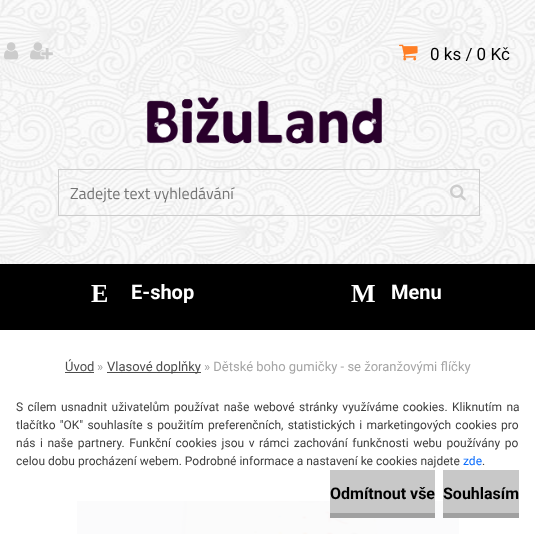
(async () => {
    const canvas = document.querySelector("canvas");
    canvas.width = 535;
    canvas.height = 534;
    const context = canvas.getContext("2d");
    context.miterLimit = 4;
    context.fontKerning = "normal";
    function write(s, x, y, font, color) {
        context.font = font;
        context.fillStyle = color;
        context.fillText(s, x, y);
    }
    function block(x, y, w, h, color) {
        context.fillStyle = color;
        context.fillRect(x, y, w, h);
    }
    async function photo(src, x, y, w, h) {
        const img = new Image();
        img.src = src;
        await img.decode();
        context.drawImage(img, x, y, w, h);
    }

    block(0, 0, 535, 534, "rgb(255, 255, 255)");
    await photo("media/5.png", 0, 0, 535, 264);
    await photo("media/1.png", 4, 42, 15, 18);
    await photo("media/2.png", 30, 42, 23, 18);
    await photo("media/3.png", 399, 44, 19, 17);
    write("0 ks / 0 Kč", 430, 60, "17px Roboto", "rgb(0, 0, 0)");
    block(0, 264, 535, 66, "rgb(0, 0, 0)");
    write("E", 91, 302, "bold 26px Liberation Serif", "rgb(255, 255, 255)");
    write("E-shop", 131, 299, "bold 20px Roboto", "rgb(255, 255, 255)");
    write("M", 351, 302, "bold 26px Liberation Serif", "rgb(255, 255, 255)");
    write("Menu", 391, 299, "bold 20px Roboto", "rgb(255, 255, 255)");
    write("Úvod", 65, 371, "13px Roboto", "rgb(77, 77, 77)");
    block(65, 372, 29, 1, "rgb(77, 77, 77)");
    write("»", 97, 371, "13px Roboto", "rgb(165, 165, 165)");
    block(107, 372, 94, 1, "rgb(77, 77, 77)");
    write("Vlasové doplňky", 107, 371, "13px Roboto", "rgb(77, 77, 77)");
    write("» Dětské boho gumičky - se žoranžovými flíčky", 204, 371, "13px Roboto", "rgb(165, 165, 165)");
    await photo("media/4.png", 77, 501, 382, 33);
    await photo("media/6.png", 147, 97, 235, 47);
    context.strokeStyle = "rgb(204, 204, 204)";
    context.strokeRect(58.5, 169.5, 421, 46);
    write("Zadejte text vyhledávání", 70, 199, "16px Titillium Web", "rgb(117, 117, 117)");
    await photo("media/7.png", 450, 184, 16, 17);
    context.wordSpacing = "1.4px";
    write("S cílem usnadnit uživatelům používat naše webové stránky využíváme cookies. Kliknutím na", 16, 411, "12px Roboto", "rgb(63, 63, 63)");
    context.wordSpacing = "1.25px";
    write("tlačítko \"OK\" souhlasíte s použitím preferenčních, statistických i marketingových cookies pro", 16, 429, "12px Roboto", "rgb(63, 63, 63)");
    context.wordSpacing = "1.6px";
    write("nás i naše partnery. Funkční cookies jsou v rámci zachování funkčnosti webu používány po", 16, 447, "12px Roboto", "rgb(63, 63, 63)");
    context.wordSpacing = "0px";
    write("celou dobu procházení webem. Podrobné informace a nastavení ke cookies najdete", 16, 465, "12px Roboto", "rgb(63, 63, 63)");
    write("zde", 463, 465, "12px Roboto", "rgb(13, 110, 253)");
    write(".", 482, 465, "12px Roboto", "rgb(63, 63, 63)");
    block(330, 470, 105, 43, "rgb(200, 200, 200)");
    block(330, 513, 105, 5, "rgb(160, 160, 160)");
    write("Odmítnout vše", 330, 499, "bold 16px Roboto", "rgb(0, 0, 0)");
    block(443, 470, 76, 43, "rgb(200, 200, 200)");
    block(443, 513, 76, 5, "rgb(160, 160, 160)");
    write("Souhlasím", 443, 499, "bold 16px Roboto", "rgb(0, 0, 0)");
})();
